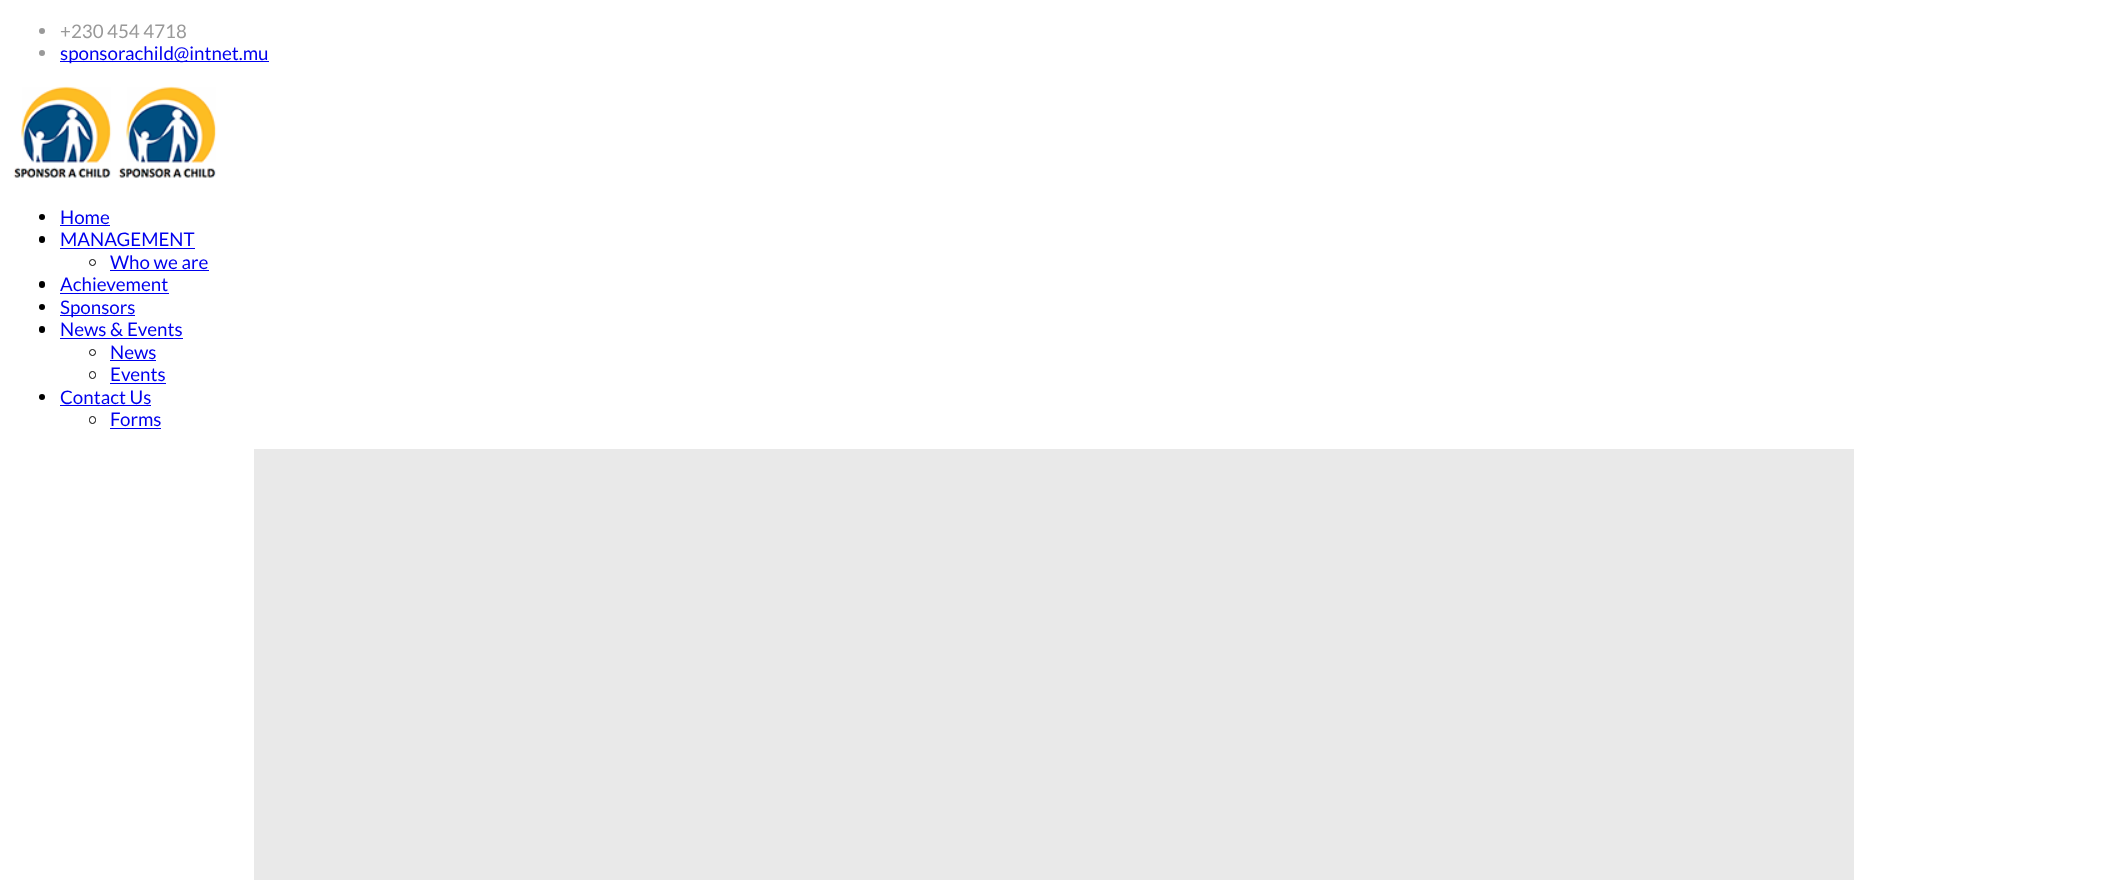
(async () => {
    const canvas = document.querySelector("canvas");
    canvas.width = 2106;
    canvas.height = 880;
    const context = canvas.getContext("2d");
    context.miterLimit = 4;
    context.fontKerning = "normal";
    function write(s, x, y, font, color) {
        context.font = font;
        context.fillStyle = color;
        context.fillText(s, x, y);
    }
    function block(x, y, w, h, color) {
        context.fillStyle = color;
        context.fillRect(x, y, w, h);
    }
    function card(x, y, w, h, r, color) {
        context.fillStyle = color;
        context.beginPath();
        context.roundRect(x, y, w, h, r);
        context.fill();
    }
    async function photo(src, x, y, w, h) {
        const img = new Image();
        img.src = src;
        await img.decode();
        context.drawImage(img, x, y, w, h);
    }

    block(0, 0, 2106, 880, "rgb(255, 255, 255)");
    context.fillStyle = "rgb(153, 153, 153)";
    context.beginPath();
    context.arc(42, 31, 3, 0, Math.PI * 2);
    context.fill();
    write("+230 454 4718", 60, 38, "18.75px Lato", "rgb(153, 153, 153)");
    context.beginPath();
    context.arc(42, 53, 3, 0, Math.PI * 2);
    context.fill();
    block(60, 61, 209, 1, "rgb(0, 0, 238)");
    write("sponsorachild@intnet.mu", 60, 60, "18.75px Lato", "rgb(0, 0, 238)");
    await photo("media/1.png", 13, 86, 99, 92);
    await photo("media/1.png", 118, 86, 99, 92);
    context.fillStyle = "rgb(0, 0, 0)";
    context.beginPath();
    context.arc(42, 217, 3, 0, Math.PI * 2);
    context.fill();
    write("Home", 60, 224, "18.75px Lato", "rgb(0, 0, 238)");
    block(60, 225, 50, 1, "rgb(0, 0, 238)");
    card(39, 236, 6, 7, 3, "rgb(0, 0, 0)");
    write("MANAGEMENT", 60, 246, "18.75px Lato", "rgb(0, 0, 238)");
    block(60, 248, 135, 1, "rgb(0, 0, 238)");
    context.beginPath();
    context.arc(92.5, 262.5, 3, 0, Math.PI * 2);
    context.strokeStyle = "rgb(0, 0, 0)";
    context.stroke();
    write("Who we are", 110, 269, "18.75px Lato", "rgb(0, 0, 238)");
    block(110, 270, 99, 1, "rgb(0, 0, 238)");
    card(39, 281, 6, 7, 3, "rgb(0, 0, 0)");
    write("Achievement", 60, 291, "18.75px Lato", "rgb(0, 0, 238)");
    block(60, 293, 109, 1, "rgb(0, 0, 238)");
    context.fillStyle = "rgb(0, 0, 0)";
    context.beginPath();
    context.arc(42, 307, 3, 0, Math.PI * 2);
    context.fill();
    block(60, 315, 75, 1, "rgb(0, 0, 238)");
    write("Sponsors", 60, 314, "18.75px Lato", "rgb(0, 0, 238)");
    card(39, 326, 6, 7, 3, "rgb(0, 0, 0)");
    write("News & Events", 60, 336, "18.75px Lato", "rgb(0, 0, 238)");
    block(60, 338, 123, 1, "rgb(0, 0, 238)");
    context.beginPath();
    context.arc(92.5, 352.5, 3, 0, Math.PI * 2);
    context.stroke();
    write("News", 110, 359, "18.75px Lato", "rgb(0, 0, 238)");
    block(110, 360, 46, 1, "rgb(0, 0, 238)");
    context.beginPath();
    context.roundRect(89.5, 371.5, 6, 7, 3);
    context.stroke();
    write("Events", 110, 381, "18.75px Lato", "rgb(0, 0, 238)");
    block(110, 383, 56, 1, "rgb(0, 0, 238)");
    context.fillStyle = "rgb(0, 0, 0)";
    context.beginPath();
    context.arc(42, 397, 3, 0, Math.PI * 2);
    context.fill();
    write("Contact Us", 60, 404, "18.75px Lato", "rgb(0, 0, 238)");
    block(60, 405, 91, 1, "rgb(0, 0, 238)");
    context.beginPath();
    context.roundRect(89.5, 416.5, 6, 7, 3);
    context.stroke();
    write("Forms", 110, 426, "18.75px Lato", "rgb(0, 0, 238)");
    block(110, 428, 51, 1, "rgb(0, 0, 238)");
    block(254, 449, 1600, 431, "rgb(233, 233, 233)");
})();
